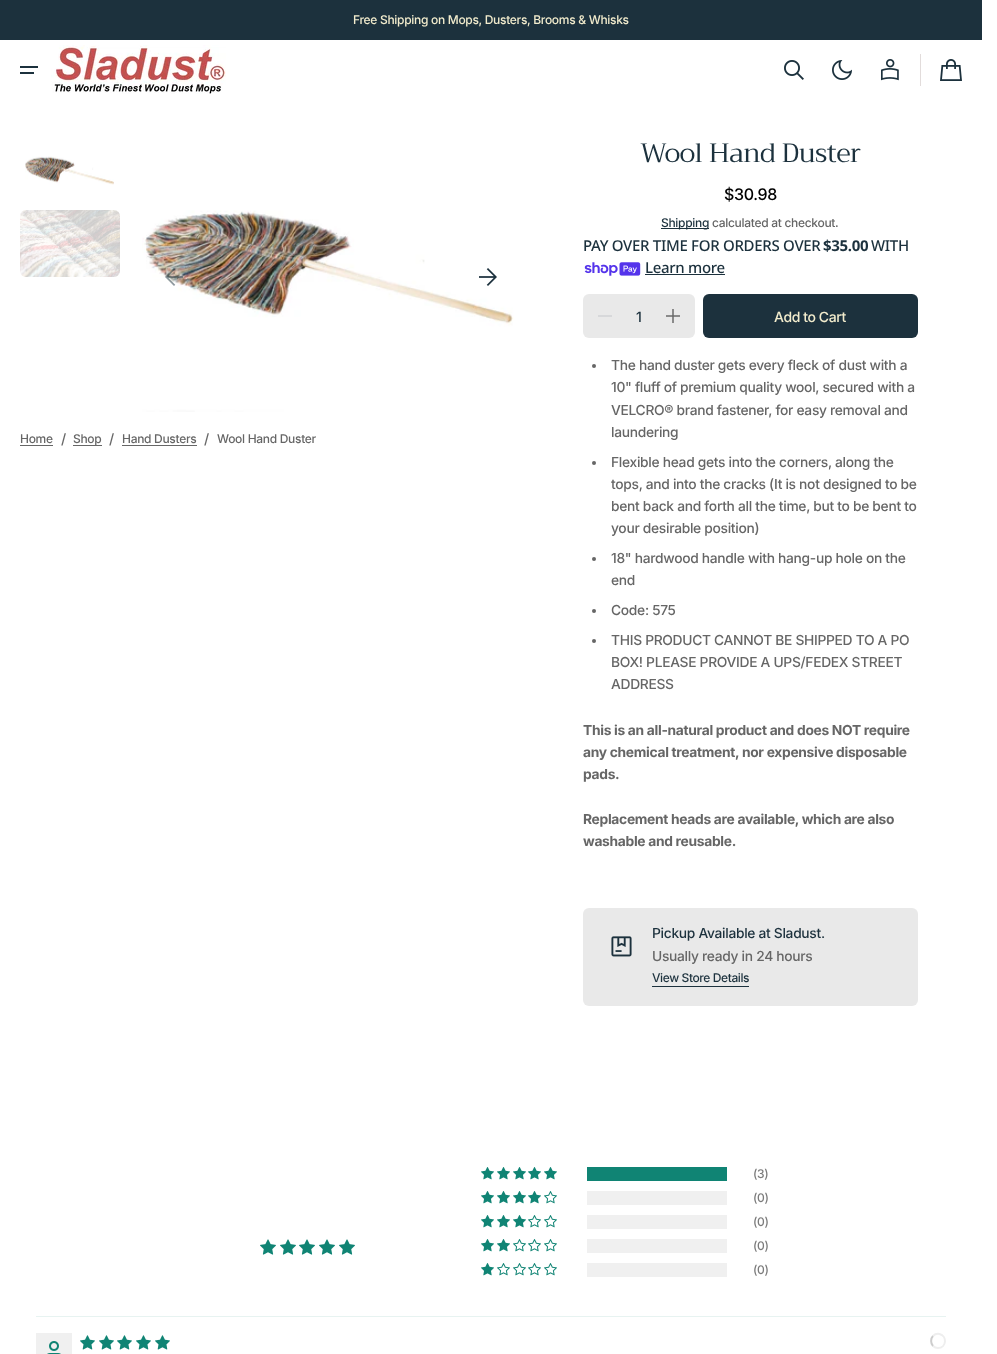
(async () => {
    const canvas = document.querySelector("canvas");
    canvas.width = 997;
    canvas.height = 1354;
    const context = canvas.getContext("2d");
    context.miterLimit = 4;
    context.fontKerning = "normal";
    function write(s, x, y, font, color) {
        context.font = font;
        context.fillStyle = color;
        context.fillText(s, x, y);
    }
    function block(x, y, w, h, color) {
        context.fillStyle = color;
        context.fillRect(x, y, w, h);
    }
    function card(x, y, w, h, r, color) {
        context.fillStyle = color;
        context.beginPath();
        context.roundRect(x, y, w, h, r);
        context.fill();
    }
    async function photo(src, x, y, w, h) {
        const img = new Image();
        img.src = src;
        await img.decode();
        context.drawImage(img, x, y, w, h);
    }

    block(0, 0, 997, 1354, "rgb(255, 255, 255)");
    block(0, 0, 982, 40, "rgb(28, 49, 61)");
    context.letterSpacing = "-0.3px";
    write("Free Shipping on Mops, Dusters, Brooms & Whisks", 353, 24, "500 12px Inter", "rgb(242, 236, 205)");
    block(20, 66, 18, 2, "rgb(28, 49, 61)");
    block(20, 72, 14, 2, "rgb(28, 49, 61)");
    await photo("media/1.png", 51, 45, 175, 49);
    await photo("media/2.png", 784, 60, 20, 20);
    await photo("media/3.png", 832, 60, 20, 20);
    await photo("media/4.png", 881, 59, 18, 22);
    block(920, 54, 1, 32, "rgb(226, 220, 219)");
    await photo("media/5.png", 940, 59, 22, 22);
    await photo("media/6.png", 25, 156, 89, 29);
    await photo("media/7.png", 20, 210, 100, 67);
    await photo("media/8.png", 142, 210, 372, 202);
    await photo("media/9.png", 165, 268, 18, 18);
    await photo("media/10.png", 479, 268, 18, 18);
    write("Home", 20, 443, "500 12px Inter", "rgb(102, 102, 102)");
    block(20, 445, 33, 1, "rgb(102, 102, 102)");
    context.letterSpacing = "0px";
    write("/", 61, 444, "500 14px Inter", "rgb(102, 102, 102)");
    block(73, 445, 29, 1, "rgb(102, 102, 102)");
    context.letterSpacing = "-0.3px";
    write("Shop", 73, 443, "500 12px Inter", "rgb(102, 102, 102)");
    context.letterSpacing = "0px";
    write("/", 109, 444, "500 14px Inter", "rgb(102, 102, 102)");
    context.letterSpacing = "-0.3px";
    write("Hand Dusters", 122, 443, "500 12px Inter", "rgb(102, 102, 102)");
    block(122, 445, 75, 1, "rgb(102, 102, 102)");
    context.letterSpacing = "0px";
    write("/", 204, 444, "500 14px Inter", "rgb(102, 102, 102)");
    context.letterSpacing = "-0.3px";
    write("Wool Hand Duster", 217, 443, "500 12px Inter", "rgb(102, 102, 102)");
    context.letterSpacing = "-0.5px";
    write("Wool Hand Duster", 640, 162, "26.5px Trirong", "rgb(28, 49, 61)");
    context.letterSpacing = "-0.3px";
    write("$30.98", 724, 200, "500 16px 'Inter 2'", "rgb(0, 0, 0)");
    block(661, 228, 48, 1, "rgb(28, 49, 61)");
    write("Shipping", 661, 227, "500 12px Inter", "rgb(28, 49, 61)");
    write("calculated at checkout.", 712, 227, "500 12px Inter", "rgb(102, 102, 102)");
    write("PAY OVER TIME FOR ORDERS OVER", 583, 251, "500 15px Noto Sans", "rgb(28, 49, 61)");
    write("$35.00", 823, 251, "bold 15px Noto Sans", "rgb(28, 49, 61)");
    write("WITH", 871, 251, "500 15px Noto Sans", "rgb(28, 49, 61)");
    await photo("media/11.png", 584, 262, 57, 14);
    write("Learn more", 645, 273, "500 15px Noto Sans", "rgb(28, 49, 61)");
    block(645, 274, 80, 1, "rgb(28, 49, 61)");
    card(583, 294, 112, 44, 6, "rgb(233, 233, 233)");
    block(598, 315, 14, 2, "rgb(215, 216, 218)");
    context.letterSpacing = "0px";
    write("1", 636, 322, "500 14px Inter", "rgb(28, 49, 61)");
    await photo("media/12.png", 666, 309, 14, 14);
    card(703, 294, 215, 44, 6, "rgb(28, 49, 61)");
    context.letterSpacing = "-0.4px";
    write("Add to Cart", 774, 322, "500 14px Inter", "rgb(242, 236, 205)");
    context.fillStyle = "rgb(102, 102, 102)";
    context.beginPath();
    context.arc(594, 366, 2, 0, Math.PI * 2);
    context.fill();
    context.letterSpacing = "-0.3px";
    write("The hand duster gets every fleck of dust with a", 611, 370, "500 13.8px Inter", "rgb(102, 102, 102)");
    write("10\" fluff of premium quality wool, secured with a", 611, 392, "500 13.8px Inter", "rgb(102, 102, 102)");
    write("VELCRO® brand fastener, for easy removal and", 611, 415, "500 13.8px Inter", "rgb(102, 102, 102)");
    write("laundering", 611, 437, "500 13.8px Inter", "rgb(102, 102, 102)");
    context.beginPath();
    context.arc(594, 463, 2, 0, Math.PI * 2);
    context.fill();
    write("Flexible head gets into the corners, along the", 611, 467, "500 13.8px Inter", "rgb(102, 102, 102)");
    write("tops, and into the cracks (It is not designed to be", 611, 489, "500 13.8px Inter", "rgb(102, 102, 102)");
    write("bent back and forth all the time, but to be bent to", 611, 511, "500 13.8px Inter", "rgb(102, 102, 102)");
    write("your desirable position)", 611, 533, "500 13.8px Inter", "rgb(102, 102, 102)");
    context.beginPath();
    context.arc(594, 559, 2, 0, Math.PI * 2);
    context.fill();
    write("18\" hardwood handle with hang-up hole on the", 611, 563, "500 13.8px Inter", "rgb(102, 102, 102)");
    write("end", 611, 585, "500 13.8px Inter", "rgb(102, 102, 102)");
    context.beginPath();
    context.arc(594, 611, 2, 0, Math.PI * 2);
    context.fill();
    write("Code: 575", 611, 615, "500 13.8px Inter", "rgb(102, 102, 102)");
    context.beginPath();
    context.arc(594, 641, 2, 0, Math.PI * 2);
    context.fill();
    write("THIS PRODUCT CANNOT BE SHIPPED TO A PO", 611, 645, "500 13.8px Inter", "rgb(102, 102, 102)");
    write("BOX! PLEASE PROVIDE A UPS/FEDEX STREET", 611, 667, "500 13.8px Inter", "rgb(102, 102, 102)");
    write("ADDRESS", 611, 689, "500 13.8px Inter", "rgb(102, 102, 102)");
    write("This is an all-natural product and does NOT require", 583, 735, "bold 13.8px Inter", "rgb(102, 102, 102)");
    write("any chemical treatment, nor expensive disposable", 583, 757, "bold 13.8px Inter", "rgb(102, 102, 102)");
    write("pads.", 583, 779, "bold 13.8px Inter", "rgb(102, 102, 102)");
    write("Replacement heads are available, which are also", 583, 824, "bold 13.8px Inter", "rgb(102, 102, 102)");
    write("washable and reusable.", 583, 846, "bold 13.8px Inter", "rgb(102, 102, 102)");
    card(583, 908, 335, 98, 6, "rgb(233, 233, 233)");
    await photo("media/13.png", 611, 936, 21, 21);
    write("Pickup Available at Sladust.", 652, 938, "500 13.8px Inter", "rgb(28, 49, 61)");
    write("Usually ready in 24 hours", 652, 961, "500 13.8px Inter", "rgb(102, 102, 102)");
    block(652, 986, 97, 1, "rgb(28, 49, 61)");
    context.letterSpacing = "-0.4px";
    write("View Store Details", 652, 982, "500 12px Inter", "rgb(28, 49, 61)");
    await photo("media/14.png", 260, 1239, 16, 16);
    await photo("media/14.png", 280, 1239, 16, 16);
    await photo("media/14.png", 299, 1239, 16, 16);
    await photo("media/14.png", 319, 1239, 16, 16);
    await photo("media/14.png", 339, 1239, 16, 16);
    await photo("media/15.png", 481, 1167, 13, 13);
    await photo("media/15.png", 497, 1167, 13, 13);
    await photo("media/15.png", 513, 1167, 13, 13);
    await photo("media/15.png", 528, 1167, 13, 13);
    await photo("media/15.png", 544, 1167, 13, 13);
    block(587, 1167, 140, 14, "rgb(16, 132, 116)");
    context.letterSpacing = "-0.3px";
    write("(3)", 753, 1178, "500 12px Inter", "rgb(123, 123, 123)");
    await photo("media/15.png", 481, 1191, 13, 13);
    await photo("media/15.png", 497, 1191, 13, 13);
    await photo("media/15.png", 513, 1191, 13, 13);
    await photo("media/15.png", 528, 1191, 13, 13);
    await photo("media/16.png", 544, 1191, 13, 13);
    block(587, 1191, 140, 14, "rgb(240, 240, 240)");
    write("(0)", 753, 1202, "500 12px Inter", "rgb(123, 123, 123)");
    await photo("media/15.png", 481, 1215, 13, 13);
    await photo("media/15.png", 497, 1215, 13, 13);
    await photo("media/15.png", 513, 1215, 13, 13);
    await photo("media/16.png", 528, 1215, 13, 13);
    await photo("media/16.png", 544, 1215, 13, 13);
    block(587, 1215, 140, 14, "rgb(240, 240, 240)");
    write("(0)", 753, 1226, "500 12px Inter", "rgb(123, 123, 123)");
    await photo("media/15.png", 481, 1239, 13, 13);
    await photo("media/15.png", 497, 1239, 13, 13);
    await photo("media/16.png", 513, 1239, 13, 13);
    await photo("media/16.png", 528, 1239, 13, 13);
    await photo("media/16.png", 544, 1239, 13, 13);
    block(587, 1239, 140, 14, "rgb(240, 240, 240)");
    write("(0)", 753, 1250, "500 12px Inter", "rgb(123, 123, 123)");
    await photo("media/15.png", 481, 1263, 13, 13);
    await photo("media/16.png", 497, 1263, 13, 13);
    await photo("media/16.png", 513, 1263, 13, 13);
    await photo("media/16.png", 528, 1263, 13, 13);
    await photo("media/16.png", 544, 1263, 13, 13);
    block(587, 1263, 140, 14, "rgb(240, 240, 240)");
    write("(0)", 753, 1274, "500 12px Inter", "rgb(123, 123, 123)");
    block(36, 1316, 910, 1, "rgb(231, 243, 241)");
    block(36, 1333, 36, 21, "rgb(240, 240, 240)");
    await photo("media/17.png", 47, 1341, 14, 13);
    await photo("media/18.png", 80, 1335, 15, 15);
    await photo("media/18.png", 99, 1335, 15, 15);
    await photo("media/18.png", 117, 1335, 15, 15);
    await photo("media/18.png", 136, 1335, 15, 15);
    await photo("media/18.png", 155, 1335, 15, 15);
    context.beginPath();
    context.moveTo(933, 1336);
    context.bezierCurveTo(934.5, 1334.5, 937, 1333.5, 939.5, 1334);
    context.bezierCurveTo(947.5, 1336, 946.5, 1348, 938, 1348);
    context.bezierCurveTo(936, 1348, 934.5, 1347.5, 933, 1346);
    context.strokeStyle = "rgb(238, 238, 238)";
    context.lineWidth = 2;
    context.stroke();
    context.beginPath();
    context.moveTo(933, 1346);
    context.bezierCurveTo(930.5, 1343.5, 930.5, 1338.5, 933, 1336);
    context.strokeStyle = "rgb(204, 204, 204)";
    context.stroke();
})();
